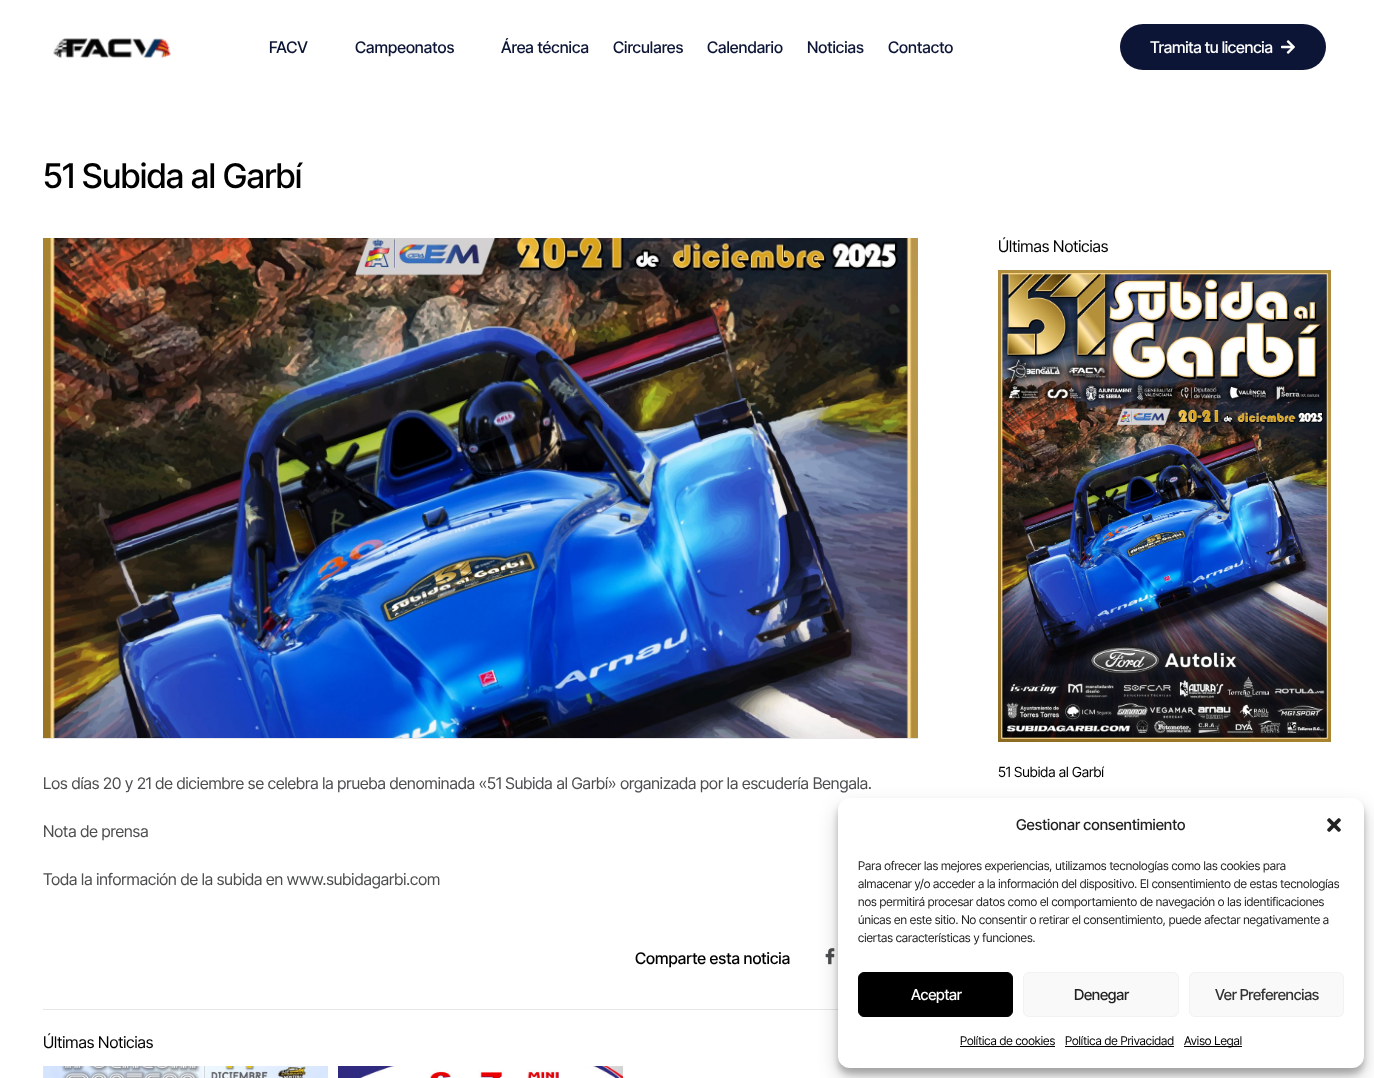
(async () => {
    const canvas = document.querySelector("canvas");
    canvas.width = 1374;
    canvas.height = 1078;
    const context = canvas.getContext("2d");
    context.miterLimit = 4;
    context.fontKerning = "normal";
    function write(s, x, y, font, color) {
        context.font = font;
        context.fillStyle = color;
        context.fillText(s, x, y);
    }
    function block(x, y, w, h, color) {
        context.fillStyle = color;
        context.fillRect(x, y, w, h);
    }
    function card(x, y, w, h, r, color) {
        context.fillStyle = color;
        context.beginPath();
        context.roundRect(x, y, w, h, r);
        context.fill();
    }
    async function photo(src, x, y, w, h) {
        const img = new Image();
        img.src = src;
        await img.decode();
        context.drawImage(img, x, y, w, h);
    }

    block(0, 0, 1374, 1078, "rgb(255, 255, 255)");
    await photo("media/1.png", 53, 38, 118, 20);
    write("FACV", 269, 53, "500 16px Inter Tight", "rgb(13, 21, 54)");
    write("Campeonatos", 355, 53, "500 16px Inter Tight", "rgb(13, 21, 54)");
    write("Área técnica", 501, 53, "500 16px Inter Tight", "rgb(13, 21, 54)");
    write("Circulares", 613, 53, "500 16px Inter Tight", "rgb(13, 21, 54)");
    write("Calendario", 707, 53, "500 16px Inter Tight", "rgb(13, 21, 54)");
    write("Noticias", 807, 53, "500 16px Inter Tight", "rgb(13, 21, 54)");
    write("Contacto", 888, 53, "500 16px Inter Tight", "rgb(13, 21, 54)");
    card(1120, 24, 206, 46, 23, "rgb(13, 21, 54)");
    context.letterSpacing = "-0.25px";
    write("Tramita tu licencia", 1150, 53, "500 16px Inter Tight", "rgb(255, 255, 255)");
    await photo("media/2.png", 1281, 40, 14, 14);
    write("51 Subida al Garbí", 43, 188, "500 34px Inter Tight", "rgb(0, 0, 0)");
    context.letterSpacing = "0px";
    write("Últimas Noticias", 998, 252, "16px Inter Tight", "rgb(0, 0, 0)");
    await photo("media/3.png", 998, 270, 333, 472);
    write("51 Subida al Garbí", 998, 777, "14px Inter Tight", "rgb(0, 0, 0)");
    await photo("media/4.png", 43, 238, 875, 500);
    block(43, 738, 875, 1, "rgb(231, 230, 232)");
    block(43, 1009, 795, 1, "rgb(231, 230, 232)");
    write("Los días 20 y 21 de diciembre se celebra la prueba denominada «51 Subida al Garbí» organizada por la escudería Bengala.", 43, 789, "16px Inter Tight", "rgb(75, 77, 78)");
    write("Nota de prensa", 43, 837, "16px Inter Tight", "rgb(75, 77, 78)");
    write("Toda la información de la subida en www.subidagarbi.com", 43, 885, "16px Inter Tight", "rgb(75, 77, 78)");
    write("Comparte esta noticia", 635, 964, "500 16px Inter Tight", "rgb(0, 0, 0)");
    await photo("media/5.png", 825, 948, 10, 17);
    write("Últimas Noticias", 43, 1048, "16px Inter Tight", "rgb(0, 0, 0)");
    await photo("media/6.png", 43, 1066, 285, 12);
    await photo("media/7.png", 338, 1066, 285, 12);
    context.fillStyle = "rgba(0, 0, 0, 0.23)";
    context.filter = "blur(3px)";
    context.beginPath();
    context.roundRect(838, 804, 526, 270, 12);
    context.fill();
    context.filter = "none";
    context.fillStyle = "rgba(0, 0, 0, 0.19)";
    context.filter = "blur(10px)";
    context.beginPath();
    context.roundRect(838, 808, 526, 270, 12);
    context.fill();
    context.filter = "none";
    card(838, 798, 526, 270, 12, "rgb(255, 255, 255)");
    write("Gestionar consentimiento", 1016, 830, "500 15px Inter Tight", "rgb(34, 34, 34)");
    await photo("media/8.png", 1327, 818, 14, 14);
    write("Para ofrecer las mejores experiencias, utilizamos tecnologías como las cookies para", 858, 870, "12px Inter Tight", "rgb(34, 34, 34)");
    write("almacenar y/o acceder a la información del dispositivo. El consentimiento de estas tecnologías", 858, 888, "12px Inter Tight", "rgb(34, 34, 34)");
    write("nos permitirá procesar datos como el comportamiento de navegación o las identificaciones", 858, 906, "12px Inter Tight", "rgb(34, 34, 34)");
    write("únicas en este sitio. No consentir o retirar el consentimiento, puede afectar negativamente a", 858, 924, "12px Inter Tight", "rgb(34, 34, 34)");
    write("ciertas características y funciones.", 858, 942, "12px Inter Tight", "rgb(34, 34, 34)");
    context.fillStyle = "rgb(0, 0, 0)";
    context.beginPath();
    context.roundRect(858.5, 972.5, 154, 44, 5.5);
    context.fill();
    context.strokeStyle = "rgb(0, 0, 0)";
    context.stroke();
    context.letterSpacing = "-0.25px";
    write("Aceptar", 911, 1000, "500 15px Inter Tight", "rgb(255, 255, 255)");
    context.fillStyle = "rgb(249, 249, 249)";
    context.beginPath();
    context.roundRect(1023.5, 972.5, 155, 44, 5.5);
    context.fill();
    context.strokeStyle = "rgb(242, 242, 242)";
    context.stroke();
    write("Denegar", 1074, 1000, "500 15px Inter Tight", "rgb(34, 34, 34)");
    context.fillStyle = "rgb(249, 249, 249)";
    context.beginPath();
    context.roundRect(1189.5, 972.5, 154, 44, 5.5);
    context.fill();
    context.stroke();
    write("Ver Preferencias", 1215, 1000, "500 15px Inter Tight", "rgb(51, 51, 51)");
    context.letterSpacing = "0px";
    write("Política de cookies", 960, 1045, "12px Inter Tight", "rgb(0, 0, 0)");
    block(960, 1046, 95, 1, "rgb(0, 0, 0)");
    write("Política de Privacidad", 1065, 1045, "12px Inter Tight", "rgb(0, 0, 0)");
    block(1065, 1046, 109, 1, "rgb(0, 0, 0)");
    block(1184, 1046, 58, 1, "rgb(0, 0, 0)");
    write("Aviso Legal", 1184, 1045, "12px Inter Tight", "rgb(0, 0, 0)");
})();
